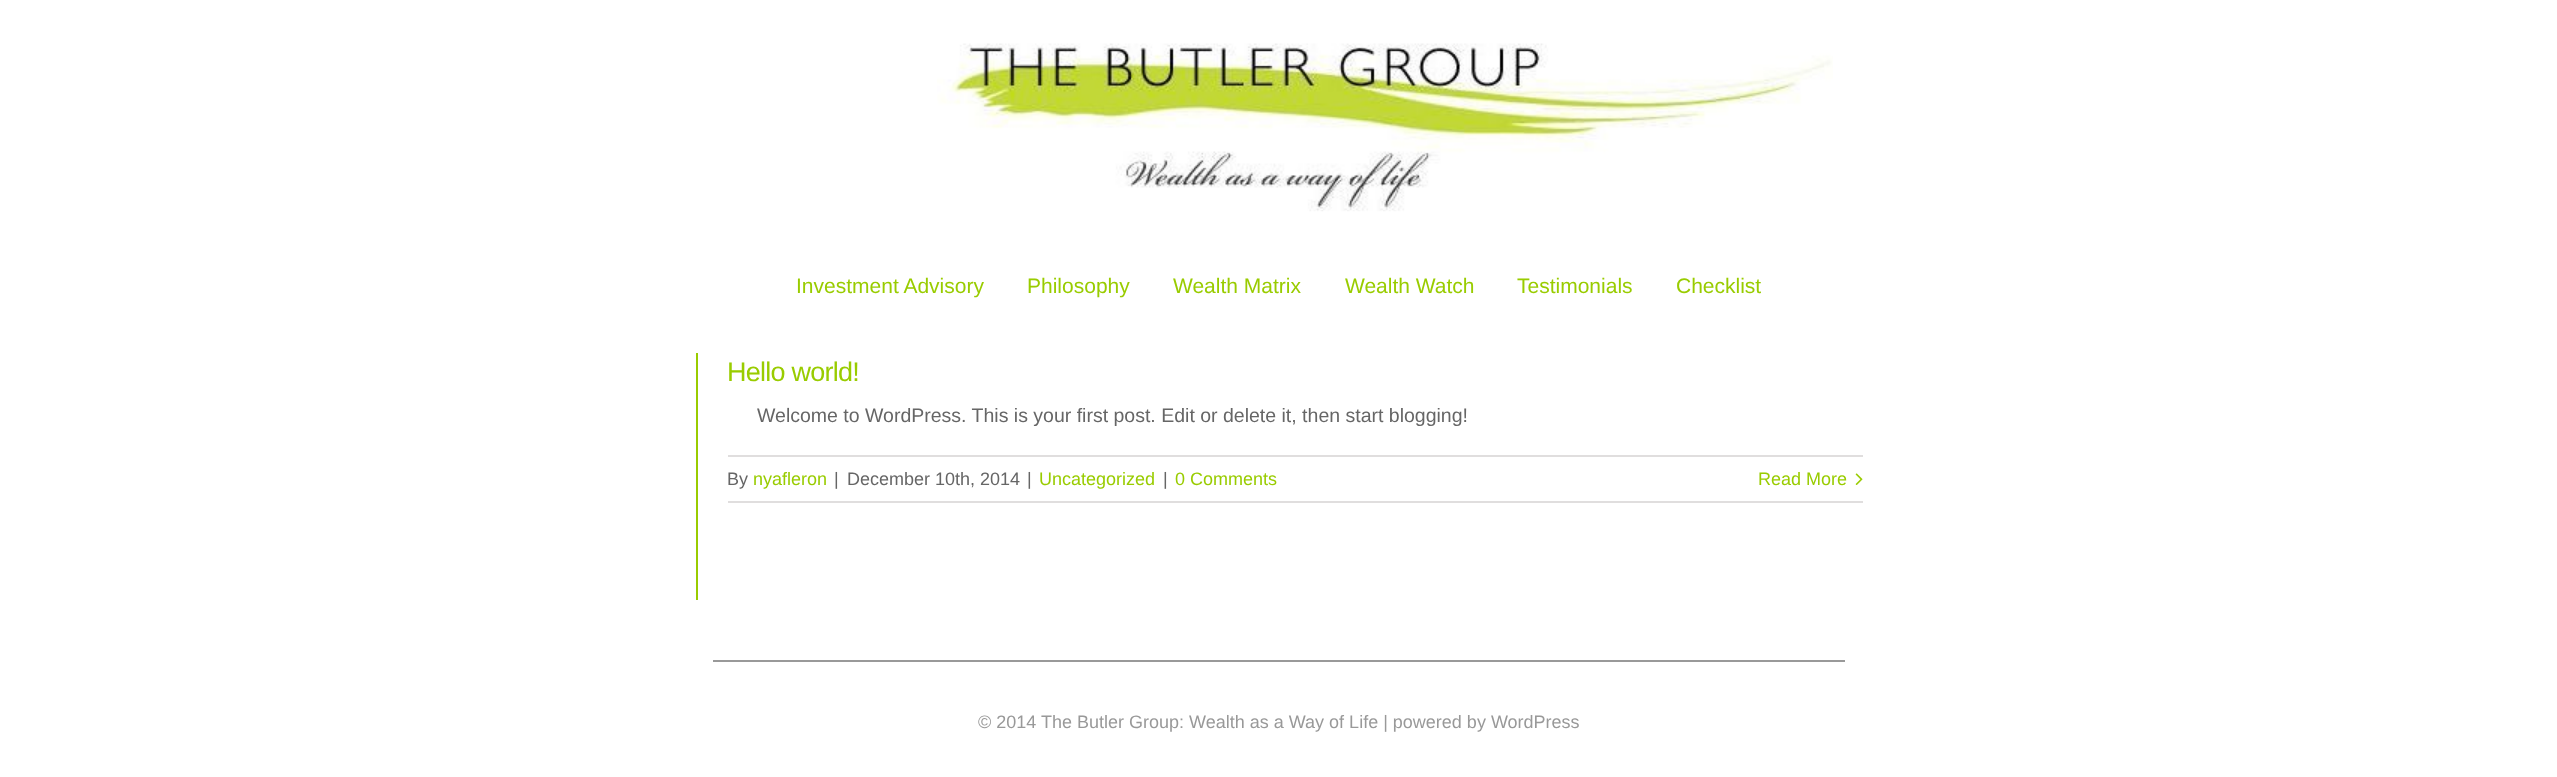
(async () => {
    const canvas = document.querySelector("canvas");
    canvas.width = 2557;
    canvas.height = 777;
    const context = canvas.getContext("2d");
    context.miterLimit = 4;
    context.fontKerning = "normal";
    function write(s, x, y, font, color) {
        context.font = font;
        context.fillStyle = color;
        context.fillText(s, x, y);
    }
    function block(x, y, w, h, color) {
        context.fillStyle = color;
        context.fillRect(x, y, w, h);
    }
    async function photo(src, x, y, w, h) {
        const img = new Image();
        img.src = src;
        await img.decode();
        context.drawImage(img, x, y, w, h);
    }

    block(0, 0, 2557, 777, "rgb(255, 255, 255)");
    await photo("media/1.png", 937, 43, 896, 169);
    write("Investment Advisory", 796, 293, "21px Liberation Sans", "rgb(153, 204, 0)");
    write("Philosophy", 1027, 293, "21px Liberation Sans", "rgb(153, 204, 0)");
    write("Wealth Matrix", 1173, 293, "21px Liberation Sans", "rgb(153, 204, 0)");
    write("Wealth Watch", 1345, 293, "21px Liberation Sans", "rgb(153, 204, 0)");
    write("Testimonials", 1517, 293, "21px Liberation Sans", "rgb(153, 204, 0)");
    write("Checklist", 1676, 293, "21px Liberation Sans", "rgb(153, 204, 0)");
    block(696, 353, 2, 247, "rgb(153, 204, 0)");
    context.letterSpacing = "-0.75px";
    write("Hello world!", 727, 381, "27px Liberation Sans", "rgb(153, 204, 0)");
    context.letterSpacing = "0px";
    write("Welcome to WordPress. This is your first post. Edit or delete it, then start blogging!", 757, 422, "19.5px Liberation Sans", "rgb(102, 102, 102)");
    block(728, 455, 1135, 2, "rgb(224, 222, 222)");
    block(728, 501, 1135, 2, "rgb(224, 222, 222)");
    write("By", 727, 485, "18px Liberation Sans", "rgb(102, 102, 102)");
    write("nyafleron", 753, 485, "18px Liberation Sans", "rgb(153, 204, 0)");
    write("|", 834, 485, "18px Liberation Sans", "rgb(102, 102, 102)");
    write("December 10th, 2014", 847, 485, "18px Liberation Sans", "rgb(102, 102, 102)");
    write("|", 1027, 485, "18px Liberation Sans", "rgb(102, 102, 102)");
    write("Uncategorized", 1039, 485, "18px Liberation Sans", "rgb(153, 204, 0)");
    write("|", 1163, 485, "18px Liberation Sans", "rgb(102, 102, 102)");
    write("0 Comments", 1175, 485, "18px Liberation Sans", "rgb(153, 204, 0)");
    write("Read More", 1758, 485, "18px Liberation Sans", "rgb(153, 204, 0)");
    await photo("media/2.png", 1855, 473, 8, 12);
    block(713, 660, 1132, 2, "rgb(153, 153, 153)");
    write("© 2014 The Butler Group: Wealth as a Way of Life | powered by WordPress", 978, 728, "18px Liberation Sans", "rgb(153, 153, 153)");
})();
